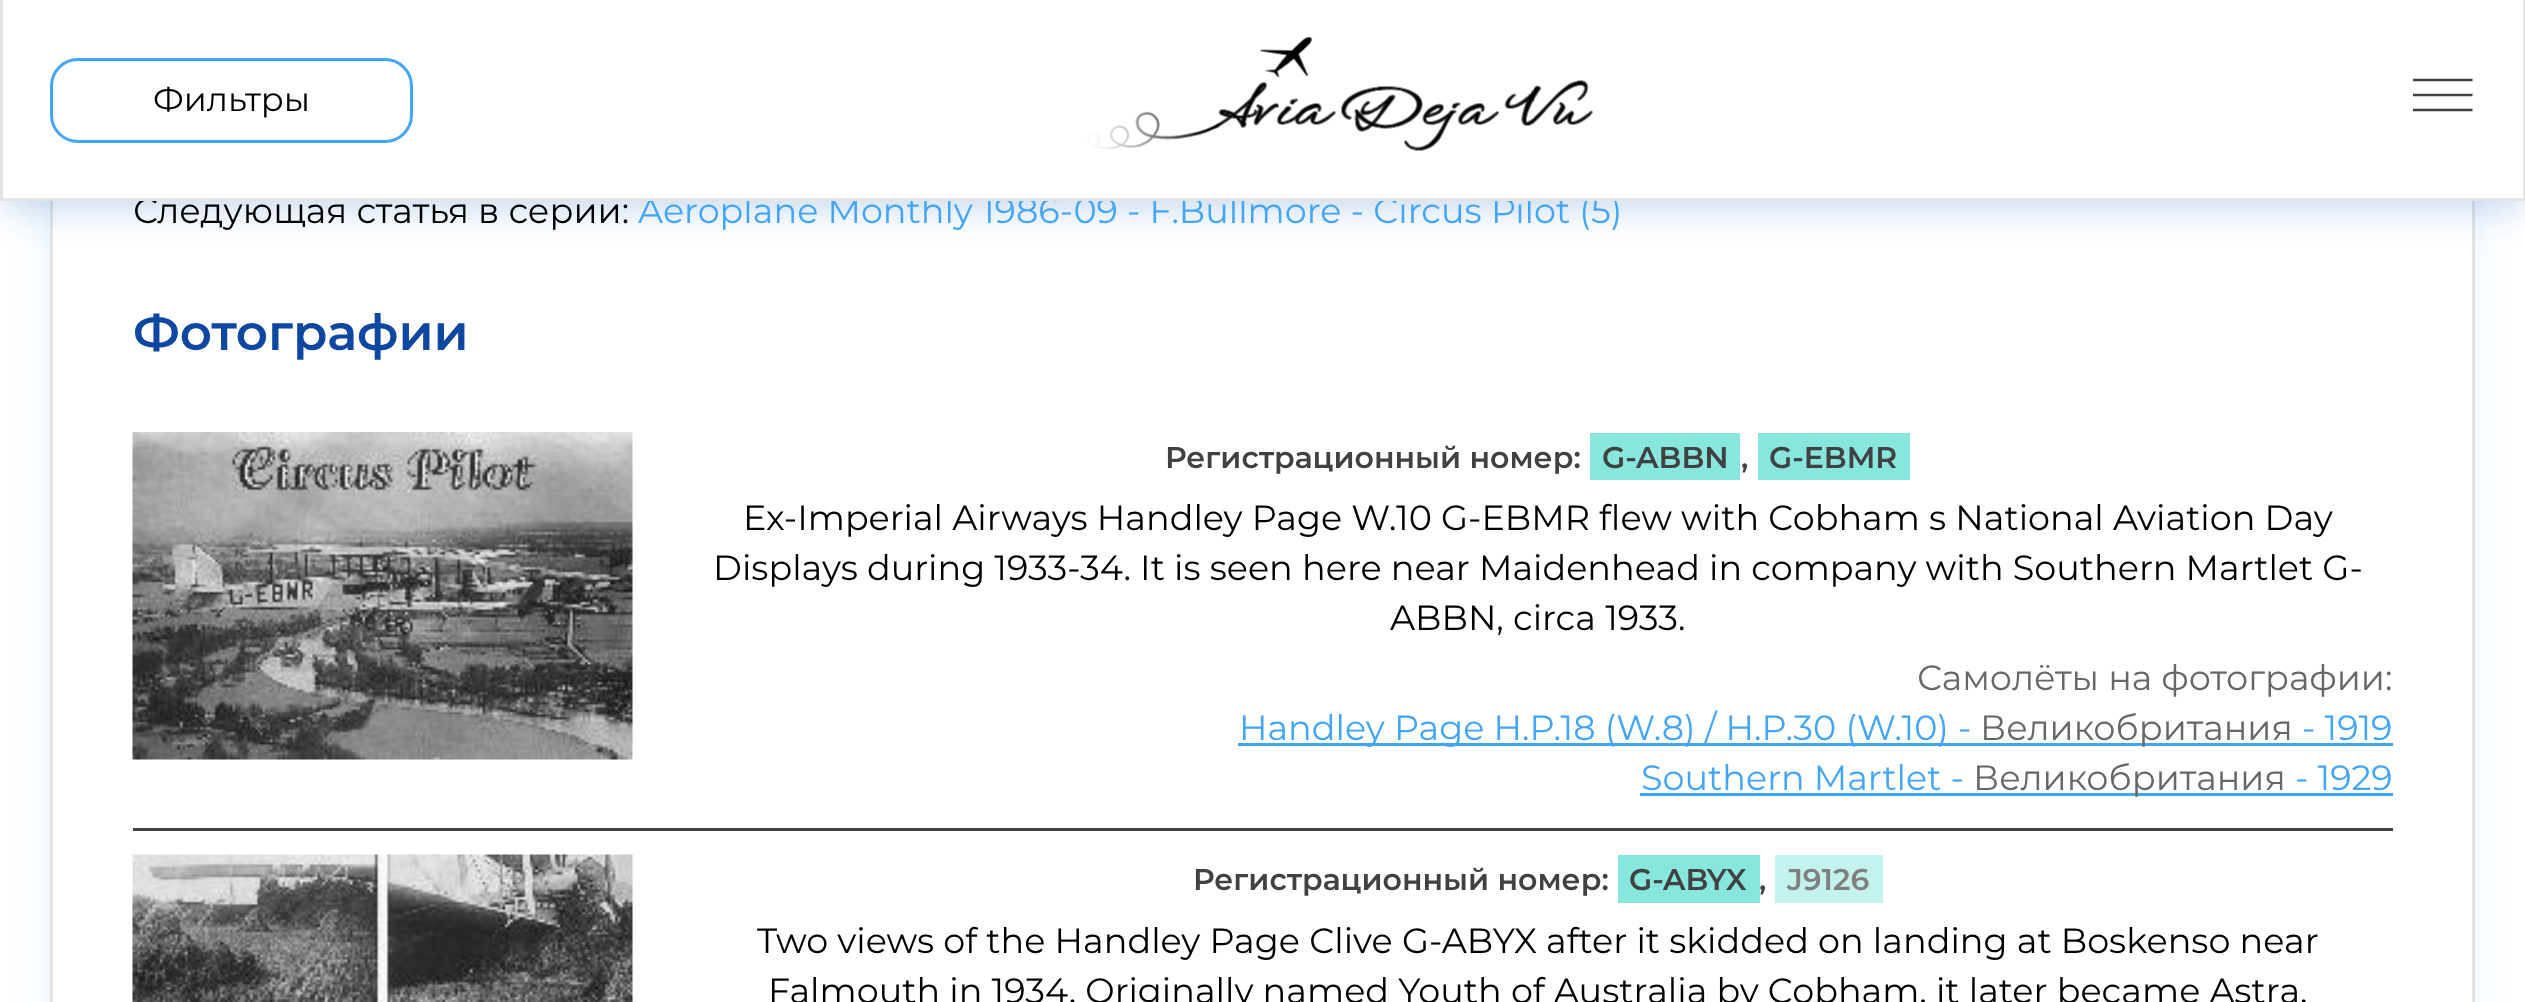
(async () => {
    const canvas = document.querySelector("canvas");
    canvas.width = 2525;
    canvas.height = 1002;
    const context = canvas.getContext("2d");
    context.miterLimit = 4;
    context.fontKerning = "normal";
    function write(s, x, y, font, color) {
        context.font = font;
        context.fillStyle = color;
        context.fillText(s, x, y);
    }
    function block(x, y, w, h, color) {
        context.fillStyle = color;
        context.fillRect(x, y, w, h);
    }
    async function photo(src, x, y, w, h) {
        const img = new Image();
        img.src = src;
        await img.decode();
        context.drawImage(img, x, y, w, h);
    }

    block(0, 0, 2525, 1002, "rgb(255, 255, 255)");
    context.save();
    context.beginPath();
    context.moveTo(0, 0);
    context.lineTo(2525, 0);
    context.lineTo(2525, 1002);
    context.lineTo(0, 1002);
    context.closePath();
    context.moveTo(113, -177);
    context.lineTo(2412, -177);
    context.bezierCurveTo(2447, -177, 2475, -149, 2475, -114);
    context.lineTo(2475, 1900);
    context.bezierCurveTo(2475, 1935, 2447, 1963, 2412, 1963);
    context.lineTo(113, 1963);
    context.bezierCurveTo(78, 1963, 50, 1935, 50, 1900);
    context.lineTo(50, -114);
    context.bezierCurveTo(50, -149, 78, -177, 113, -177);
    context.closePath();
    context.clip("evenodd");
    context.fillStyle = "rgba(66, 165, 245, 0.15)";
    context.filter = "blur(19px)";
    context.beginPath();
    context.roundRect(48, -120, 2425, 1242, 63);
    context.fill();
    context.filter = "none";
    context.restore();
    context.strokeStyle = "rgb(228, 228, 228)";
    context.lineWidth = 3;
    context.strokeRect(51.5, -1.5, 2422, 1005);
    context.fillStyle = "rgba(21, 101, 192, 0.25)";
    context.filter = "blur(19px)";
    context.beginPath();
    context.rect(0, 8, 2525, 200);
    context.fill();
    context.filter = "none";
    write("Aeroplane Monthly 1986-09 - F.Bullmore - Circus Pilot (5)", 638, 223, "35px Montserrat", "rgb(66, 165, 245)");
    block(3, 0, 2520, 198, "rgb(255, 255, 255)");
    block(2523, 0, 2, 200, "rgb(228, 228, 228)");
    write("Следующая статья в серии:", 133, 223, "35px Montserrat", "rgb(0, 0, 0)");
    block(0, 198, 2525, 3, "rgb(228, 228, 228)");
    block(0, 0, 3, 200, "rgb(228, 228, 228)");
    context.beginPath();
    context.roundRect(51.5, 59.5, 360, 82, 26.5);
    context.strokeStyle = "rgb(66, 165, 245)";
    context.stroke();
    write("Фильтры", 153, 111, "33.5px Montserrat", "rgb(0, 0, 0)");
    await photo("media/1.png", 1087, 36, 506, 115);
    context.save();
    context.beginPath();
    context.rect(2413, 78, 60, 35);
    context.clip();
    context.beginPath();
    context.moveTo(2412.5, 80);
    context.lineTo(2472.5, 80);
    context.moveTo(2412.5, 95);
    context.lineTo(2472.5, 95);
    context.moveTo(2412.5, 110);
    context.lineTo(2472.5, 110);
    context.strokeStyle = "rgb(65, 65, 65)";
    context.lineWidth = 2.5;
    context.stroke();
    context.restore();
    write("Фотографии", 133, 350, "600 50px Montserrat", "rgb(13, 71, 161)");
    block(133, 828, 2260, 3, "rgb(65, 65, 65)");
    await photo("media/2.png", 132, 432, 501, 328);
    write("Регистрационный номер:", 1165, 468, "600 30px Montserrat", "rgb(65, 65, 65)");
    block(1590, 433, 150, 47, "rgb(135, 230, 222)");
    write("G-ABBN", 1602, 468, "600 30px Montserrat", "rgb(65, 65, 65)");
    write(",", 1741, 468, "600 30px Montserrat", "rgb(65, 65, 65)");
    block(1758, 433, 152, 47, "rgb(135, 230, 222)");
    write("G-EBMR", 1769, 468, "600 30px Montserrat", "rgb(65, 65, 65)");
    write("Ex-Imperial Airways Handley Page W.10 G-EBMR flew with Cobham s National Aviation Day", 743, 530, "35px Montserrat", "rgb(0, 0, 0)");
    write("Displays during 1933-34. It is seen here near Maidenhead in company with Southern Martlet G-", 713, 580, "35px Montserrat", "rgb(0, 0, 0)");
    write("ABBN, circa 1933.", 1390, 630, "35px Montserrat", "rgb(0, 0, 0)");
    write("Самолёты на фотографии:", 1917, 690, "35px Montserrat", "rgb(103, 103, 103)");
    block(1238, 743, 1155, 3, "rgb(66, 165, 245)");
    write("Handley Page H.P.18 (W.8) / H.P.30 (W.10) -", 1239, 740, "35px Montserrat", "rgb(66, 165, 245)");
    write("Великобритания", 1980, 740, "35px Montserrat", "rgb(103, 103, 103)");
    write("- 1919", 2302, 740, "35px Montserrat", "rgb(66, 165, 245)");
    write("Southern Martlet -", 1641, 790, "35px Montserrat", "rgb(66, 165, 245)");
    block(1640, 793, 753, 3, "rgb(66, 165, 245)");
    write("Великобритания", 1973, 790, "35px Montserrat", "rgb(103, 103, 103)");
    write("- 1929", 2295, 790, "35px Montserrat", "rgb(66, 165, 245)");
    await photo("media/3.png", 132, 854, 501, 148);
    write("Регистрационный номер:", 1193, 890, "600 30px Montserrat", "rgb(65, 65, 65)");
    block(1618, 855, 142, 48, "rgb(135, 230, 222)");
    write("G-ABYX", 1629, 890, "600 30px Montserrat", "rgb(65, 65, 65)");
    write(",", 1759, 890, "600 30px Montserrat", "rgb(65, 65, 65)");
    block(1775, 855, 108, 48, "rgb(196, 243, 239)");
    write("J9126", 1787, 890, "600 30px Montserrat", "rgb(128, 128, 128)");
    write("Two views of the Handley Page Clive G-ABYX after it skidded on landing at Boskenso near", 757, 953, "35px Montserrat", "rgb(0, 0, 0)");
    write("Falmouth in 1934. Originally named Youth of Australia by Cobham, it later became Astra.", 768, 1003, "35px Montserrat", "rgb(0, 0, 0)");
})();
